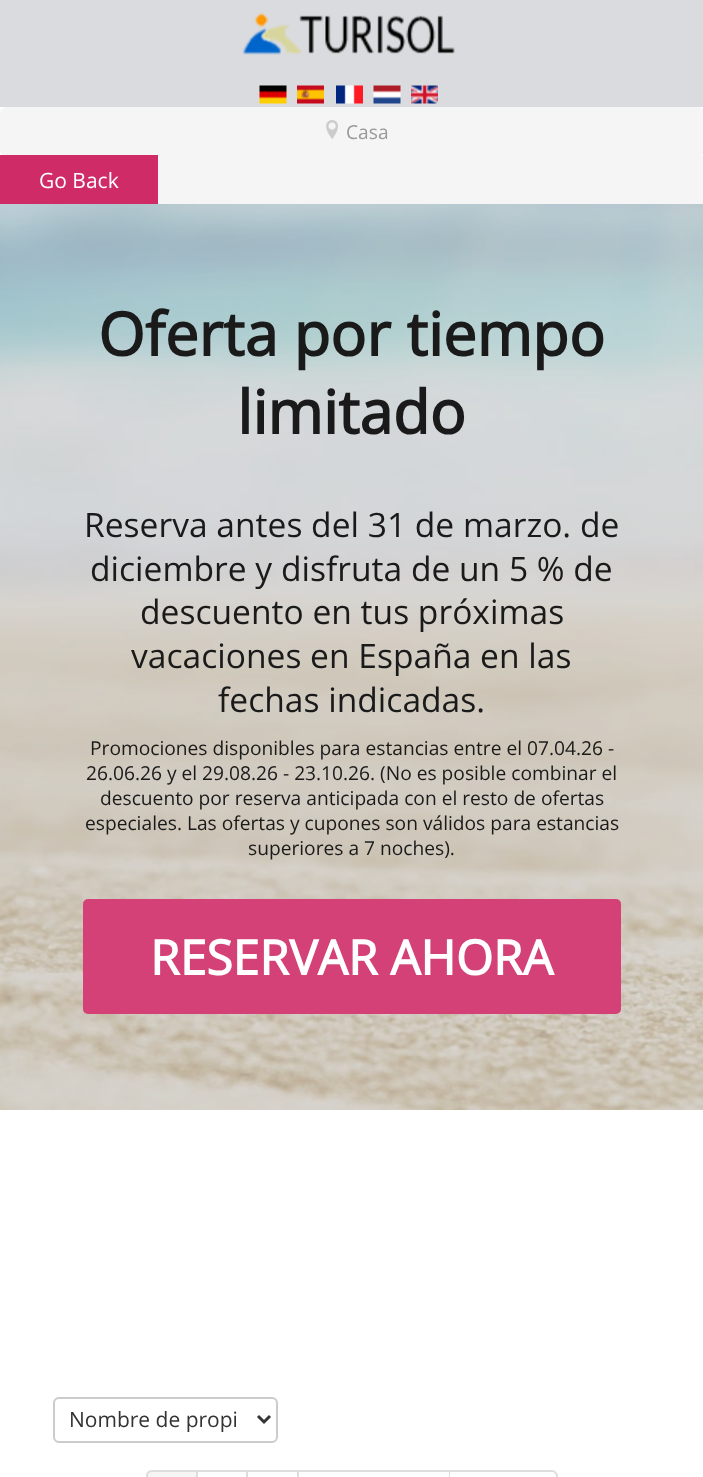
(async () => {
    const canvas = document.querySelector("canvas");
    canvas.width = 703;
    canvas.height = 1477;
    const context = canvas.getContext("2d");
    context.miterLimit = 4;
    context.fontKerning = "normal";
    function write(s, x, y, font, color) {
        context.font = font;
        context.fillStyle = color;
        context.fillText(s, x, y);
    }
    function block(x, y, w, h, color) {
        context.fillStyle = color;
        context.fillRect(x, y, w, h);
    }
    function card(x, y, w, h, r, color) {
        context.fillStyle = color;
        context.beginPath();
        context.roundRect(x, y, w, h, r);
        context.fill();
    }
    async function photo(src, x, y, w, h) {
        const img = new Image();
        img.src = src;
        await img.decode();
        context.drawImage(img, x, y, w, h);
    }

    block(0, 0, 703, 1477, "rgb(255, 255, 255)");
    block(0, 0, 703, 107, "rgb(218, 219, 222)");
    await photo("media/1.png", 242, 12, 213, 43);
    await photo("media/2.png", 259, 85, 28, 19);
    await photo("media/3.png", 297, 85, 27, 19);
    await photo("media/4.png", 336, 85, 27, 19);
    await photo("media/5.png", 373, 85, 28, 19);
    await photo("media/6.png", 411, 85, 27, 19);
    card(0, 107, 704, 49, 6, "rgb(245, 245, 245)");
    await photo("media/7.png", 326, 120, 12, 19);
    write("Casa", 346, 139, "19.2px Open Sans", "rgb(153, 153, 153)");
    block(158, 156, 545, 48, "rgb(245, 245, 245)");
    block(0, 155, 158, 49, "rgb(207, 44, 103)");
    write("Go Back", 39, 188, "21px Open Sans", "rgb(255, 255, 255)");
    await photo("media/8.png", 0, 204, 703, 906);
    write("Oferta por tiempo", 98, 356, "bold 60px Open Sans", "rgb(26, 26, 26)");
    write("limitado", 237, 434, "bold 60px Open Sans", "rgb(26, 26, 26)");
    write("Reserva antes del 31 de marzo. de", 84, 537, "33.6px Open Sans", "rgb(26, 26, 26)");
    write("diciembre y disfruta de un 5 % de", 90, 581, "33.6px Open Sans", "rgb(26, 26, 26)");
    write("descuento en tus próximas", 140, 624, "33.6px Open Sans", "rgb(26, 26, 26)");
    write("vacaciones en España en las", 131, 668, "33.6px Open Sans", "rgb(26, 26, 26)");
    write("fechas indicadas.", 218, 712, "33.6px Open Sans", "rgb(26, 26, 26)");
    write("Promociones disponibles para estancias entre el 07.04.26 -", 90, 755, "19.2px Open Sans", "rgb(26, 26, 26)");
    write("26.06.26 y el 29.08.26 - 23.10.26. (No es posible combinar el", 86, 780, "19.2px Open Sans", "rgb(26, 26, 26)");
    write("descuento por reserva anticipada con el resto de ofertas", 100, 805, "19.2px Open Sans", "rgb(26, 26, 26)");
    write("especiales. Las ofertas y cupones son válidos para estancias", 85, 830, "19.2px Open Sans", "rgb(26, 26, 26)");
    write("superiores a 7 noches).", 248, 855, "19.2px Open Sans", "rgb(26, 26, 26)");
    card(83, 899, 538, 115, 5, "rgb(212, 65, 118)");
    write("RESERVAR AHORA", 150, 975, "bold 48px Open Sans", "rgb(255, 255, 255)");
    context.beginPath();
    context.roundRect(54, 1398, 223, 44, 5);
    context.strokeStyle = "rgb(204, 204, 204)";
    context.lineWidth = 2;
    context.stroke();
    context.beginPath();
    context.moveTo(258, 1416);
    context.lineTo(264, 1422);
    context.lineTo(270, 1416);
    context.strokeStyle = "rgb(51, 51, 51)";
    context.lineWidth = 3;
    context.stroke();
    write("Nombre de propi", 69, 1427, "21px Open Sans", "rgb(51, 51, 51)");
    context.fillStyle = "rgb(245, 245, 245)";
    context.beginPath();
    context.moveTo(152, 1471);
    context.lineTo(197, 1471);
    context.lineTo(197, 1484);
    context.lineTo(152, 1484);
    context.bezierCurveTo(149, 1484, 147, 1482, 147, 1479);
    context.lineTo(147, 1476);
    context.bezierCurveTo(147, 1473, 149, 1471, 152, 1471);
    context.closePath();
    context.fill();
    context.strokeStyle = "rgb(221, 221, 221)";
    context.lineWidth = 2;
    context.stroke();
    block(198, 1470, 252, 2, "rgb(221, 221, 221)");
    block(246, 1470, 2, 7, "rgb(221, 221, 221)");
    block(297, 1470, 2, 7, "rgb(221, 221, 221)");
    block(449, 1470, 1, 7, "rgb(221, 221, 221)");
    context.beginPath();
    context.moveTo(450, 1470);
    context.lineTo(552, 1470);
    context.bezierCurveTo(555, 1470, 558, 1473, 558, 1476);
    context.lineTo(558, 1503);
    context.bezierCurveTo(558, 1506, 555, 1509, 552, 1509);
    context.lineTo(450, 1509);
    context.closePath();
    context.moveTo(450, 1472);
    context.lineTo(552, 1472);
    context.bezierCurveTo(554, 1472, 556, 1474, 556, 1476);
    context.lineTo(556, 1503);
    context.bezierCurveTo(556, 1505, 554, 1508, 552, 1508);
    context.lineTo(450, 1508);
    context.closePath();
    context.fill("evenodd");
})();
